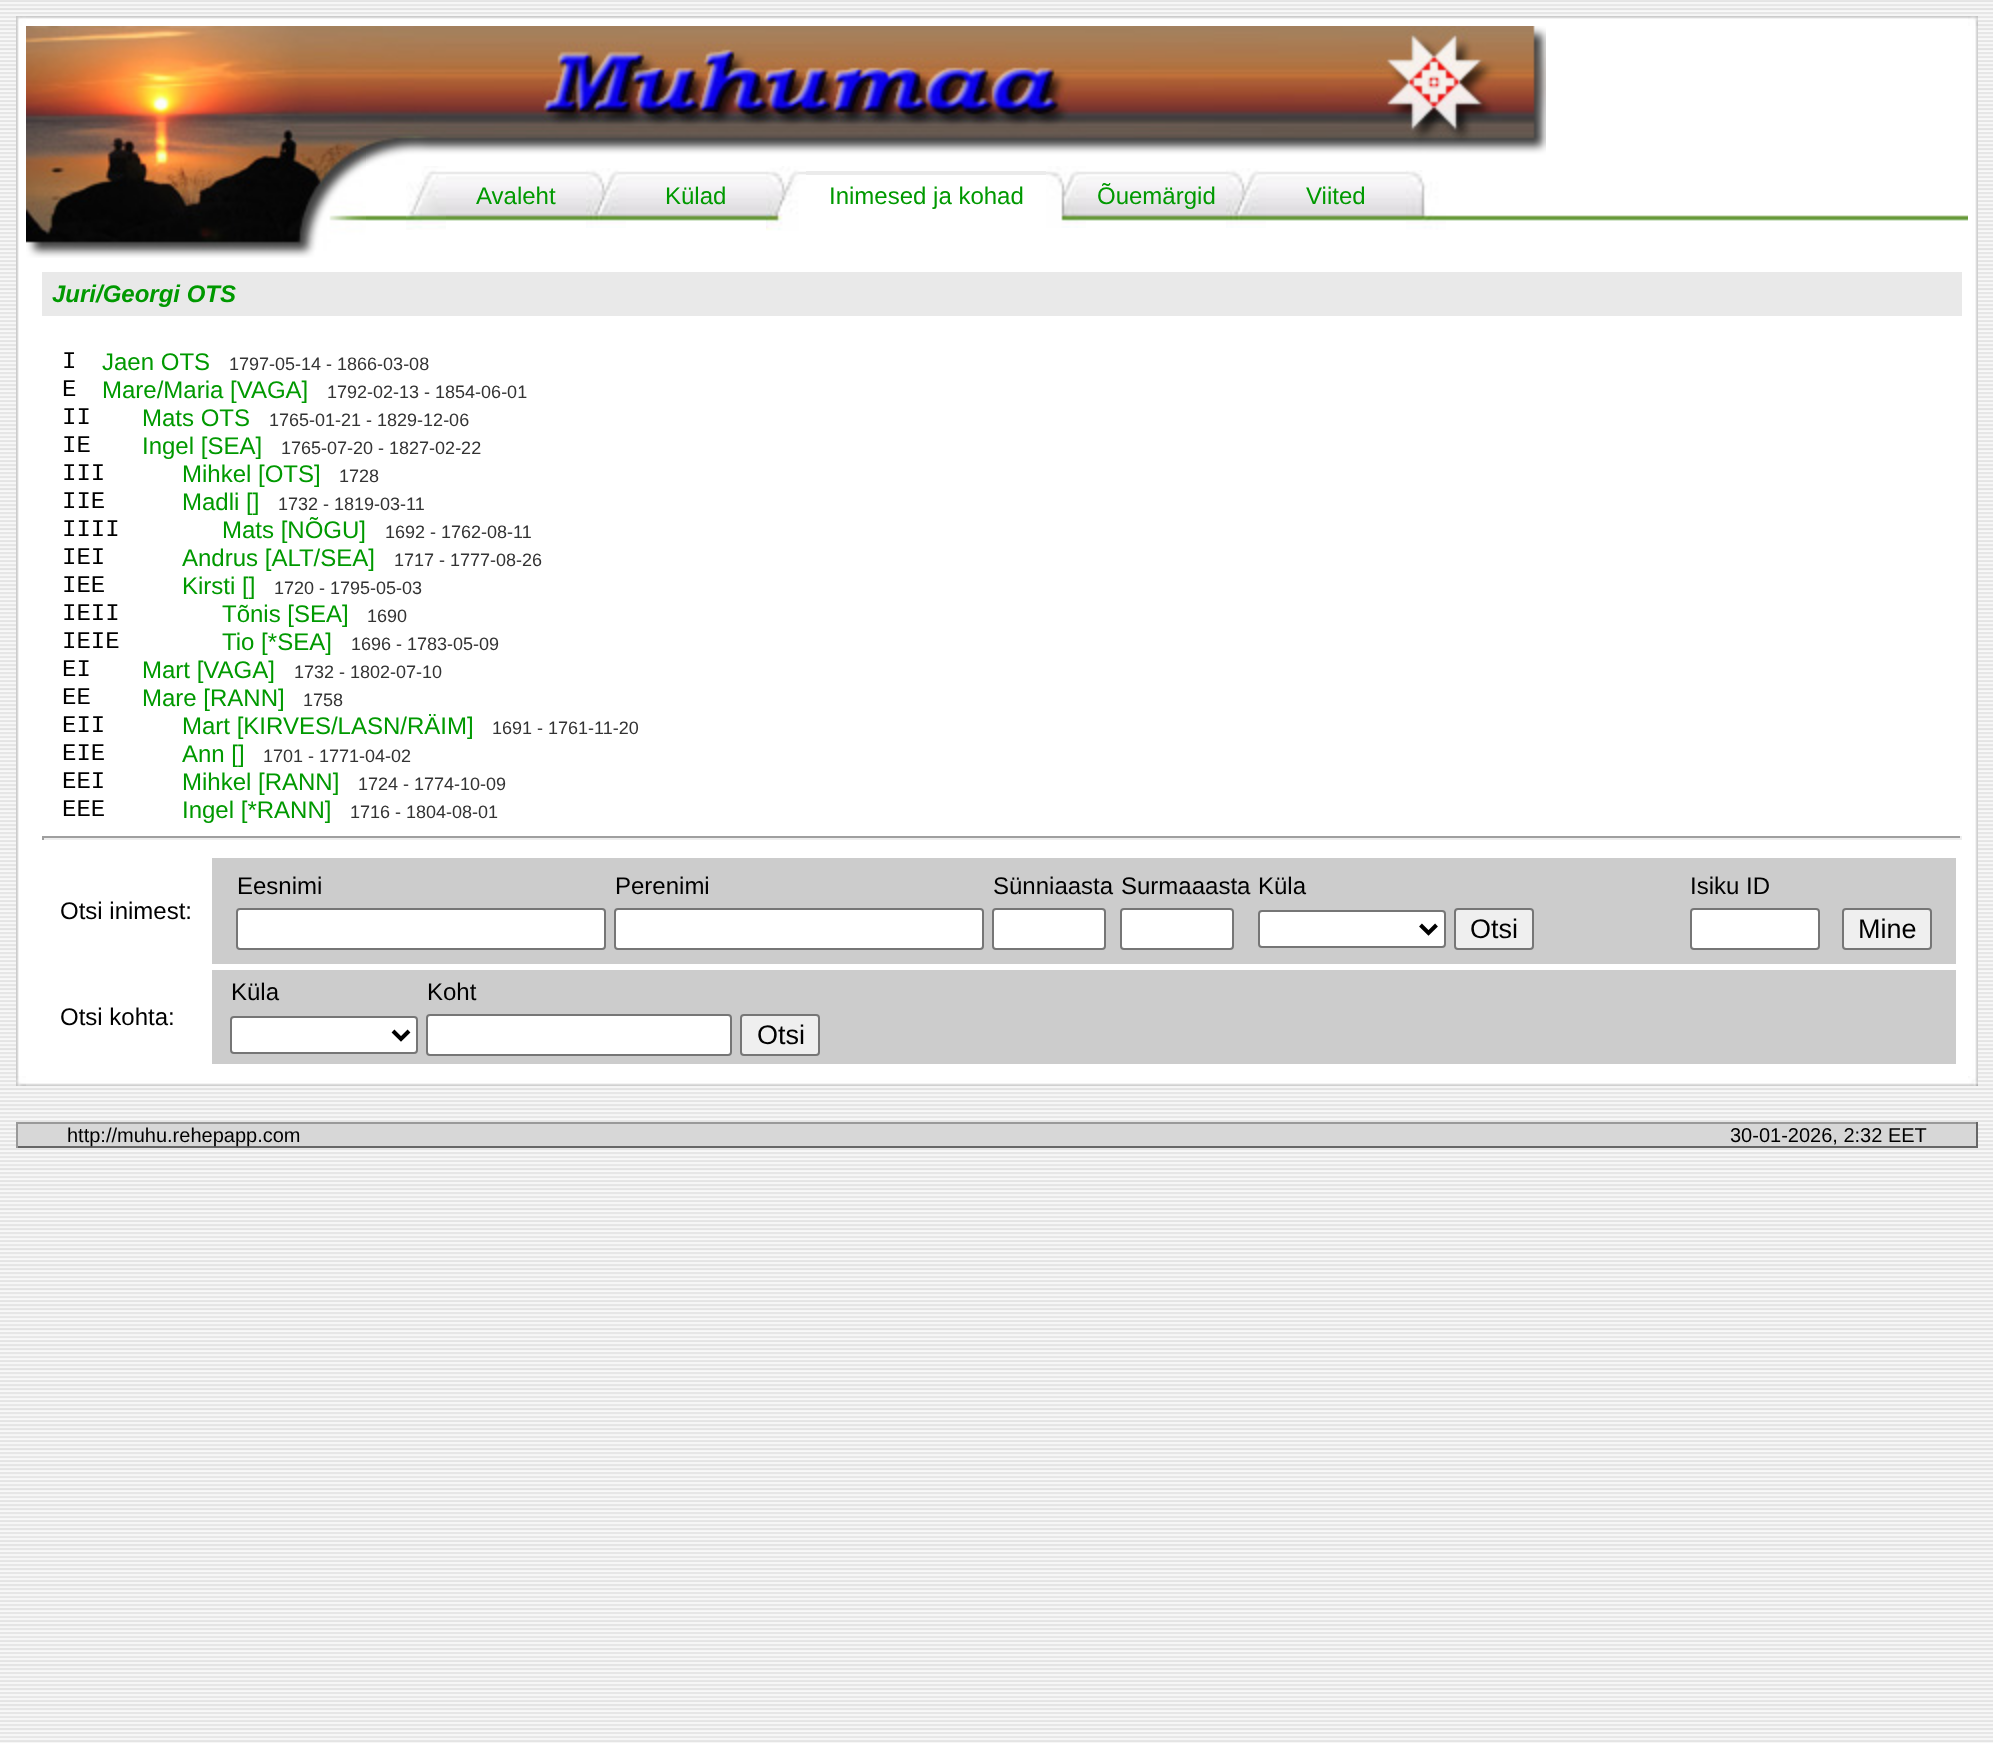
(async () => {
    const canvas = document.querySelector("canvas");
    canvas.width = 1993;
    canvas.height = 1743;
    const context = canvas.getContext("2d");
    context.miterLimit = 4;
    context.fontKerning = "normal";
    function write(s, x, y, font, color) {
        context.font = font;
        context.fillStyle = color;
        context.fillText(s, x, y);
    }
    function block(x, y, w, h, color) {
        context.fillStyle = color;
        context.fillRect(x, y, w, h);
    }
    async function photo(src, x, y, w, h) {
        const img = new Image();
        img.src = src;
        await img.decode();
        context.drawImage(img, x, y, w, h);
    }

    block(0, 0, 1993, 1743, "rgb(255, 255, 255)");
    await photo("media/1.png", 0, 0, 1993, 1743);
    await photo("media/2.png", 16, 16, 10, 10);
    await photo("media/3.png", 26, 16, 1942, 10);
    await photo("media/4.png", 1968, 16, 10, 10);
    await photo("media/5.png", 16, 26, 10, 1050);
    block(26, 26, 1942, 1050, "rgb(255, 255, 255)");
    await photo("media/6.png", 26, 26, 340, 232);
    await photo("media/7.png", 366, 26, 1180, 140);
    await photo("media/8.png", 406, 166, 40, 64);
    await photo("media/9.png", 446, 171, 140, 50);
    write("Avaleht", 476, 204, "24px Liberation Sans", "rgb(0, 153, 0)");
    await photo("media/10.png", 586, 168, 40, 60);
    await photo("media/9.png", 626, 171, 140, 50);
    write("Külad", 665, 204, "24px Liberation Sans", "rgb(0, 153, 0)");
    await photo("media/11.png", 766, 166, 40, 65);
    block(806, 171, 240, 4, "rgb(235, 235, 235)");
    write("Inimesed ja kohad", 829, 204, "24px Liberation Sans", "rgb(0, 153, 0)");
    await photo("media/12.png", 1046, 166, 40, 62);
    await photo("media/9.png", 1086, 171, 140, 50);
    write("Õuemärgid", 1097, 204, "24px Liberation Sans", "rgb(0, 153, 0)");
    await photo("media/10.png", 1226, 168, 40, 60);
    await photo("media/9.png", 1266, 171, 140, 50);
    write("Viited", 1306, 204, "24px Liberation Sans", "rgb(0, 153, 0)");
    await photo("media/13.png", 1406, 170, 40, 60);
    await photo("media/14.png", 366, 215, 40, 6);
    await photo("media/15.png", 1446, 215, 362, 6);
    await photo("media/16.png", 1808, 215, 160, 6);
    block(42, 272, 1920, 44, "rgb(233, 233, 233)");
    write("Juri/Georgi OTS", 52, 302, "italic bold 24px Liberation Sans", "rgb(0, 153, 0)");
    write("I", 62, 368, "24px Liberation Mono", "rgb(0, 0, 0)");
    write("Jaen OTS", 102, 370, "24px Liberation Sans", "rgb(0, 153, 0)");
    write("1797-05-14 - 1866-03-08", 229, 370, "18px Liberation Sans", "rgb(51, 51, 51)");
    write("E", 62, 396, "24px Liberation Mono", "rgb(0, 0, 0)");
    write("Mare/Maria [VAGA]", 102, 398, "24px Liberation Sans", "rgb(0, 153, 0)");
    write("1792-02-13 - 1854-06-01", 327, 398, "18px Liberation Sans", "rgb(51, 51, 51)");
    write("II", 62, 424, "24px Liberation Mono", "rgb(0, 0, 0)");
    write("Mats OTS", 142, 426, "24px Liberation Sans", "rgb(0, 153, 0)");
    write("1765-01-21 - 1829-12-06", 269, 426, "18px Liberation Sans", "rgb(51, 51, 51)");
    write("IE", 62, 452, "24px Liberation Mono", "rgb(0, 0, 0)");
    write("Ingel [SEA]", 142, 454, "24px Liberation Sans", "rgb(0, 153, 0)");
    write("1765-07-20 - 1827-02-22", 281, 454, "18px Liberation Sans", "rgb(51, 51, 51)");
    write("III", 62, 480, "24px Liberation Mono", "rgb(0, 0, 0)");
    write("Mihkel [OTS]", 182, 482, "24px Liberation Sans", "rgb(0, 153, 0)");
    write("1728", 339, 482, "18px Liberation Sans", "rgb(51, 51, 51)");
    write("IIE", 62, 508, "24px Liberation Mono", "rgb(0, 0, 0)");
    write("Madli []", 182, 510, "24px Liberation Sans", "rgb(0, 153, 0)");
    write("1732 - 1819-03-11", 278, 510, "18px Liberation Sans", "rgb(51, 51, 51)");
    write("IIII", 62, 536, "24px Liberation Mono", "rgb(0, 0, 0)");
    write("Mats [NÕGU]", 222, 538, "24px Liberation Sans", "rgb(0, 153, 0)");
    write("1692 - 1762-08-11", 385, 538, "18px Liberation Sans", "rgb(51, 51, 51)");
    write("IEI", 62, 564, "24px Liberation Mono", "rgb(0, 0, 0)");
    write("Andrus [ALT/SEA]", 182, 566, "24px Liberation Sans", "rgb(0, 153, 0)");
    write("1717 - 1777-08-26", 394, 566, "18px Liberation Sans", "rgb(51, 51, 51)");
    write("IEE", 62, 592, "24px Liberation Mono", "rgb(0, 0, 0)");
    write("Kirsti []", 182, 594, "24px Liberation Sans", "rgb(0, 153, 0)");
    write("1720 - 1795-05-03", 274, 594, "18px Liberation Sans", "rgb(51, 51, 51)");
    write("IEII", 62, 620, "24px Liberation Mono", "rgb(0, 0, 0)");
    write("Tõnis [SEA]", 222, 622, "24px Liberation Sans", "rgb(0, 153, 0)");
    write("1690", 367, 622, "18px Liberation Sans", "rgb(51, 51, 51)");
    write("IEIE", 62, 648, "24px Liberation Mono", "rgb(0, 0, 0)");
    write("Tio [*SEA]", 222, 650, "24px Liberation Sans", "rgb(0, 153, 0)");
    write("1696 - 1783-05-09", 351, 650, "18px Liberation Sans", "rgb(51, 51, 51)");
    write("EI", 62, 676, "24px Liberation Mono", "rgb(0, 0, 0)");
    write("Mart [VAGA]", 142, 678, "24px Liberation Sans", "rgb(0, 153, 0)");
    write("1732 - 1802-07-10", 294, 678, "18px Liberation Sans", "rgb(51, 51, 51)");
    write("EE", 62, 704, "24px Liberation Mono", "rgb(0, 0, 0)");
    write("Mare [RANN]", 142, 706, "24px Liberation Sans", "rgb(0, 153, 0)");
    write("1758", 303, 706, "18px Liberation Sans", "rgb(51, 51, 51)");
    write("EII", 62, 732, "24px Liberation Mono", "rgb(0, 0, 0)");
    write("Mart [KIRVES/LASN/RÄIM]", 182, 734, "24px Liberation Sans", "rgb(0, 153, 0)");
    write("1691 - 1761-11-20", 492, 734, "18px Liberation Sans", "rgb(51, 51, 51)");
    write("EIE", 62, 760, "24px Liberation Mono", "rgb(0, 0, 0)");
    write("Ann []", 182, 762, "24px Liberation Sans", "rgb(0, 153, 0)");
    write("1701 - 1771-04-02", 263, 762, "18px Liberation Sans", "rgb(51, 51, 51)");
    write("EEI", 62, 788, "24px Liberation Mono", "rgb(0, 0, 0)");
    write("Mihkel [RANN]", 182, 790, "24px Liberation Sans", "rgb(0, 153, 0)");
    write("1724 - 1774-10-09", 358, 790, "18px Liberation Sans", "rgb(51, 51, 51)");
    write("EEE", 62, 816, "24px Liberation Mono", "rgb(0, 0, 0)");
    write("Ingel [*RANN]", 182, 818, "24px Liberation Sans", "rgb(0, 153, 0)");
    write("1716 - 1804-08-01", 350, 818, "18px Liberation Sans", "rgb(51, 51, 51)");
    block(42, 836, 1920, 2, "rgb(159, 159, 159)");
    block(1960, 836, 2, 4, "rgb(238, 238, 238)");
    block(42, 838, 1920, 2, "rgb(238, 238, 238)");
    block(42, 836, 2, 4, "rgb(159, 159, 159)");
    write("Otsi inimest:", 60, 919, "24px Liberation Sans", "rgb(0, 0, 0)");
    block(212, 858, 1744, 106, "rgb(204, 204, 204)");
    write("Eesnimi", 237, 894, "24px Liberation Sans", "rgb(0, 0, 0)");
    write("Perenimi", 615, 894, "24px Liberation Sans", "rgb(0, 0, 0)");
    write("Sünniaasta", 993, 894, "24px Liberation Sans", "rgb(0, 0, 0)");
    write("Surmaaasta", 1121, 894, "24px Liberation Sans", "rgb(0, 0, 0)");
    write("Küla", 1258, 894, "24px Liberation Sans", "rgb(0, 0, 0)");
    context.fillStyle = "rgb(255, 255, 255)";
    context.beginPath();
    context.roundRect(237, 909, 368, 40, 3);
    context.fill();
    context.strokeStyle = "rgb(118, 118, 118)";
    context.lineWidth = 2;
    context.stroke();
    context.beginPath();
    context.roundRect(615, 909, 368, 40, 3);
    context.fill();
    context.stroke();
    context.beginPath();
    context.roundRect(993, 909, 112, 40, 3);
    context.fill();
    context.stroke();
    context.beginPath();
    context.roundRect(1121, 909, 112, 40, 3);
    context.fill();
    context.stroke();
    context.beginPath();
    context.roundRect(1259, 911, 186, 36, 3);
    context.fill();
    context.stroke();
    context.beginPath();
    context.moveTo(1420.5, 925);
    context.lineTo(1428.5, 933);
    context.lineTo(1436.5, 925);
    context.strokeStyle = "rgb(0, 0, 0)";
    context.lineWidth = 4;
    context.stroke();
    context.fillStyle = "rgb(239, 239, 239)";
    context.beginPath();
    context.roundRect(1455, 909, 78, 40, 3);
    context.fill();
    context.strokeStyle = "rgb(118, 118, 118)";
    context.lineWidth = 2;
    context.stroke();
    write("Otsi", 1470, 938, "27px Liberation Sans", "rgb(0, 0, 0)");
    write("Isiku ID", 1690, 894, "24px Liberation Sans", "rgb(0, 0, 0)");
    context.fillStyle = "rgb(255, 255, 255)";
    context.beginPath();
    context.roundRect(1691, 909, 128, 40, 3);
    context.fill();
    context.stroke();
    context.fillStyle = "rgb(239, 239, 239)";
    context.beginPath();
    context.roundRect(1843, 909, 88, 40, 3);
    context.fill();
    context.stroke();
    write("Mine", 1858, 938, "27px Liberation Sans", "rgb(0, 0, 0)");
    write("Otsi kohta:", 60, 1025, "24px Liberation Sans", "rgb(0, 0, 0)");
    block(212, 970, 1744, 94, "rgb(204, 204, 204)");
    write("Küla", 231, 1000, "24px Liberation Sans", "rgb(0, 0, 0)");
    write("Koht", 427, 1000, "24px Liberation Sans", "rgb(0, 0, 0)");
    context.fillStyle = "rgb(255, 255, 255)";
    context.beginPath();
    context.roundRect(231, 1017, 186, 36, 3);
    context.fill();
    context.stroke();
    context.beginPath();
    context.moveTo(393, 1031);
    context.lineTo(401, 1039);
    context.lineTo(409, 1031);
    context.strokeStyle = "rgb(0, 0, 0)";
    context.lineWidth = 4;
    context.stroke();
    context.beginPath();
    context.roundRect(427, 1015, 304, 40, 3);
    context.fill();
    context.strokeStyle = "rgb(118, 118, 118)";
    context.lineWidth = 2;
    context.stroke();
    context.fillStyle = "rgb(239, 239, 239)";
    context.beginPath();
    context.roundRect(741, 1015, 78, 40, 3);
    context.fill();
    context.stroke();
    write("Otsi", 757, 1044, "27px Liberation Sans", "rgb(0, 0, 0)");
    await photo("media/17.png", 1968, 26, 10, 1050);
    await photo("media/18.png", 16, 1076, 10, 10);
    await photo("media/19.png", 26, 1076, 1942, 10);
    await photo("media/20.png", 1968, 1076, 10, 10);
    block(18, 1124, 1958, 22, "rgb(215, 215, 215)");
    block(16, 1122, 1962, 2, "rgb(153, 153, 153)");
    block(1976, 1122, 2, 26, "rgb(102, 102, 102)");
    block(16, 1146, 1962, 2, "rgb(102, 102, 102)");
    block(16, 1122, 2, 26, "rgb(153, 153, 153)");
    write("http://muhu.rehepapp.com", 67, 1142, "20px Liberation Sans", "rgb(0, 0, 0)");
    write("30-01-2026, 2:32 EET", 1730, 1142, "20px Liberation Sans", "rgb(0, 0, 0)");
})();
